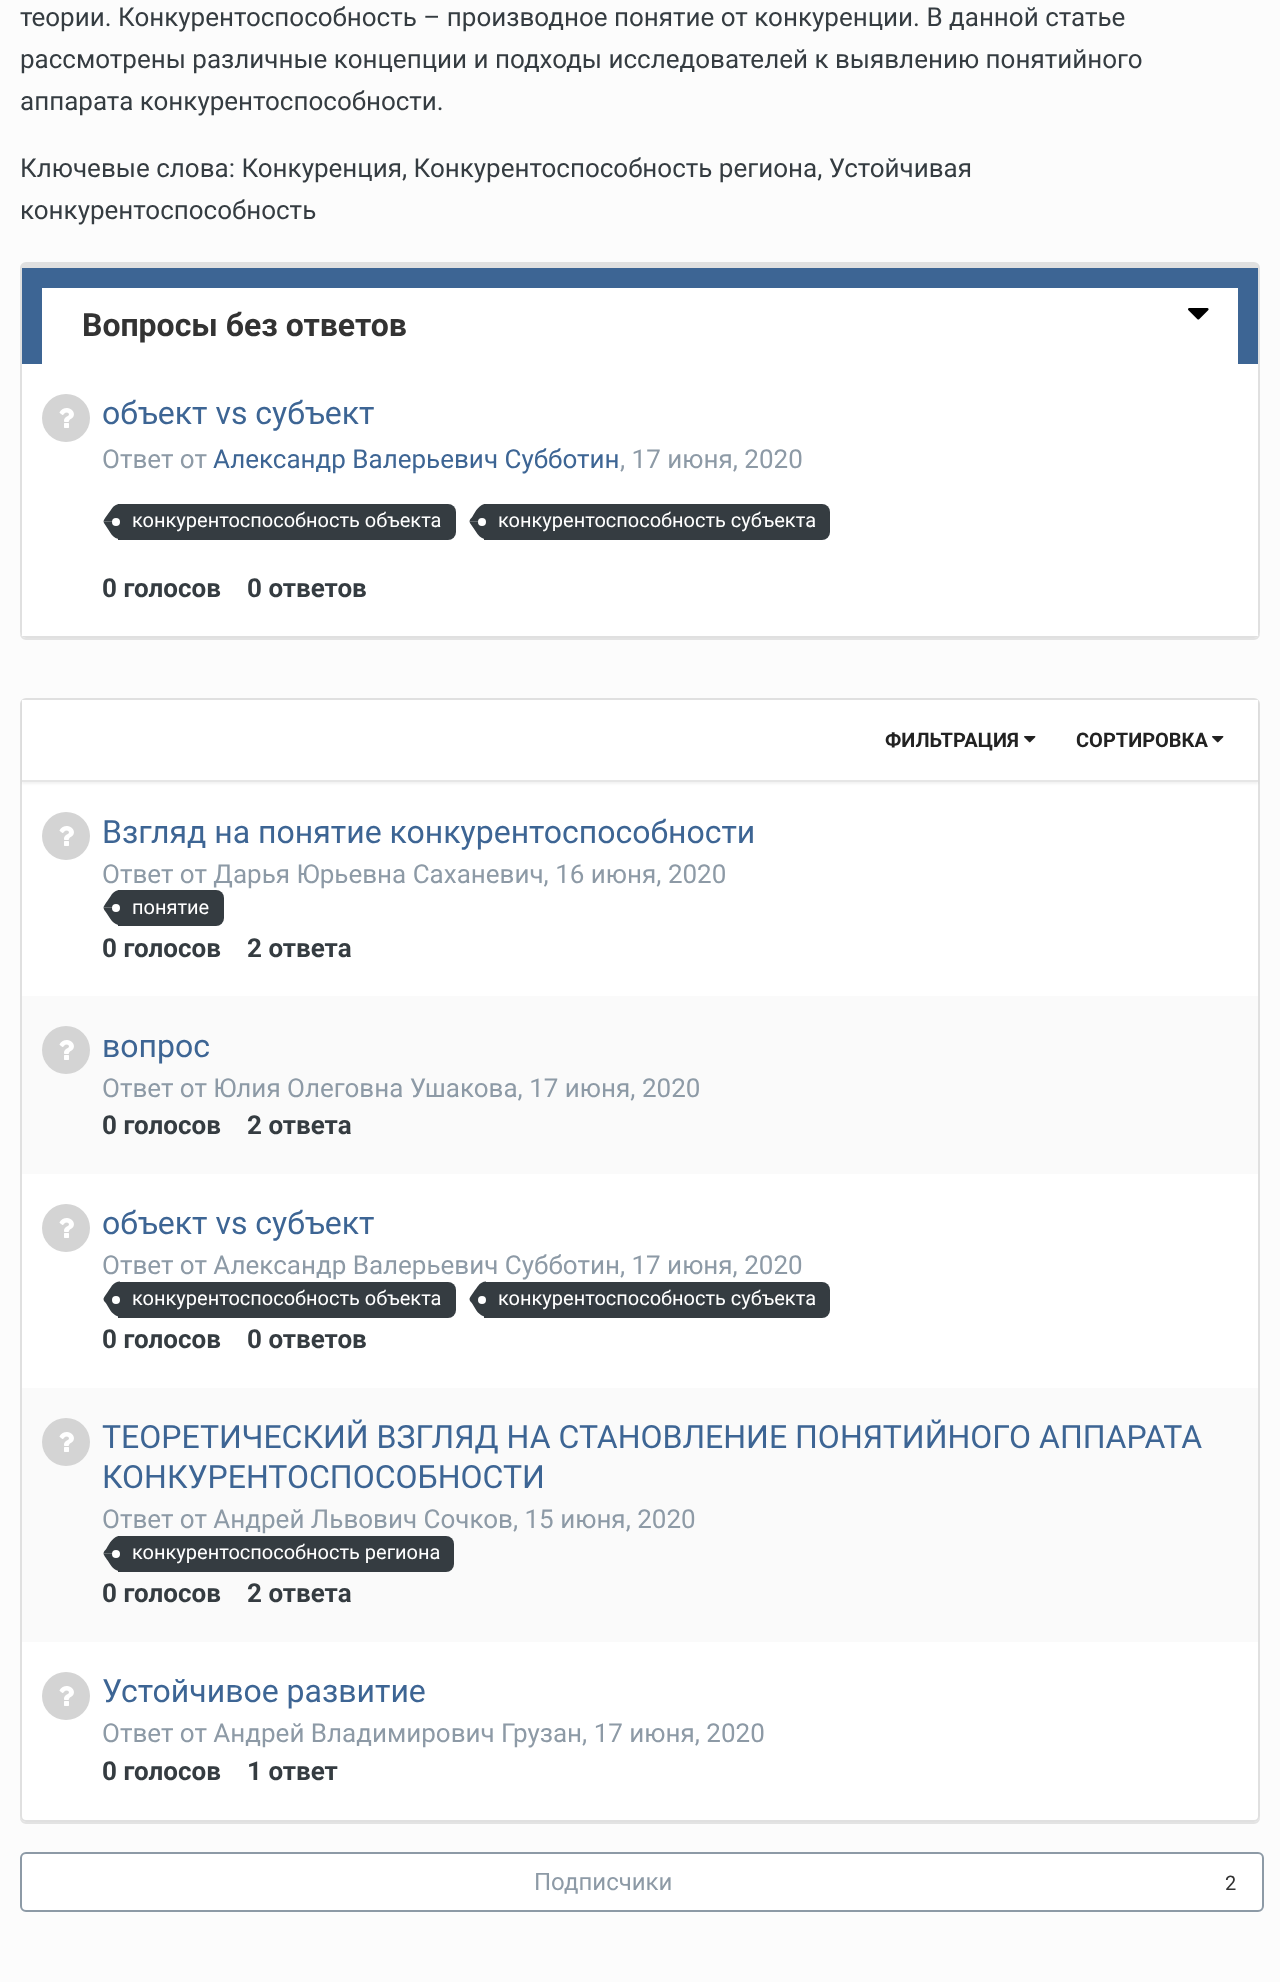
(async () => {
    const canvas = document.querySelector("canvas");
    canvas.width = 1280;
    canvas.height = 1982;
    const context = canvas.getContext("2d");
    context.miterLimit = 4;
    context.fontKerning = "normal";
    function write(s, x, y, font, color) {
        context.font = font;
        context.fillStyle = color;
        context.fillText(s, x, y);
    }
    function block(x, y, w, h, color) {
        context.fillStyle = color;
        context.fillRect(x, y, w, h);
    }
    async function photo(src, x, y, w, h) {
        const img = new Image();
        img.src = src;
        await img.decode();
        context.drawImage(img, x, y, w, h);
    }

    block(0, 0, 1280, 1982, "rgb(252, 252, 252)");
    write("теории. Конкурентоспособность – производное понятие от конкуренции. В данной статье", 20, 26, "26px Roboto", "rgb(53, 60, 65)");
    write("рассмотрены различные концепции и подходы исследователей к выявлению понятийного", 20, 68, "26px Roboto", "rgb(53, 60, 65)");
    write("аппарата конкурентоспособности.", 20, 110, "26px Roboto", "rgb(53, 60, 65)");
    write("Ключевые слова: Конкуренция, Конкурентоспособность региона, Устойчивая", 20, 177, "26px Roboto", "rgb(53, 60, 65)");
    write("конкурентоспособность", 20, 219, "26px Roboto", "rgb(53, 60, 65)");
    context.fillStyle = "rgb(227, 227, 227)";
    context.beginPath();
    context.moveTo(20, 632);
    context.lineTo(20, 634);
    context.bezierCurveTo(20, 637, 23, 640, 26, 640);
    context.lineTo(1254, 640);
    context.bezierCurveTo(1257, 640, 1260, 637, 1260, 634);
    context.lineTo(1260, 632);
    context.bezierCurveTo(1260, 635, 1257, 638, 1254, 638);
    context.lineTo(26, 638);
    context.bezierCurveTo(23, 638, 20, 635, 20, 632);
    context.closePath();
    context.fill();
    context.beginPath();
    context.roundRect(21, 263, 1238, 374, 5);
    context.strokeStyle = "rgb(224, 224, 224)";
    context.lineWidth = 2;
    context.stroke();
    block(22, 268, 1236, 96, "rgb(61, 101, 148)");
    block(22, 264, 1236, 4, "rgb(224, 224, 224)");
    block(42, 288, 1196, 76, "rgb(255, 255, 255)");
    write("Вопросы без ответов", 82, 336, "bold 32px Roboto", "rgb(51, 51, 51)");
    await photo("media/1.png", 1188, 308, 21, 12);
    block(22, 364, 1236, 272, "rgb(255, 255, 255)");
    context.fillStyle = "rgb(212, 212, 212)";
    context.beginPath();
    context.arc(66, 418, 24, 0, Math.PI * 2);
    context.fill();
    await photo("media/2.png", 59, 408, 15, 20);
    write("объект vs субъект", 102, 424, "32px Roboto", "rgb(61, 101, 148)");
    write("Ответ от", 102, 468, "26px Roboto", "rgb(141, 154, 166)");
    write("Александр Валерьевич Субботин", 213, 468, "26px Roboto", "rgb(61, 101, 148)");
    write(", 17 июня, 2020", 620, 468, "26px Roboto", "rgb(141, 154, 166)");
    context.fillStyle = "rgb(53, 60, 65)";
    context.beginPath();
    context.roundRect(118, 504, 338, 36, [0, 8, 8, 0]);
    context.fill();
    context.beginPath();
    context.moveTo(104, 523);
    context.lineTo(103.5, 521.5);
    context.lineTo(120, 521.5);
    context.lineTo(119.5, 522);
    context.lineTo(120, 522);
    context.lineTo(120, 539);
    context.bezierCurveTo(117, 539, 114, 537.5, 111.5, 534.5);
    context.closePath();
    context.fill();
    context.beginPath();
    context.moveTo(111.5, 509);
    context.bezierCurveTo(113.5, 505.5, 117, 504, 120, 504);
    context.lineTo(120, 521);
    context.lineTo(119.5, 521);
    context.lineTo(120, 521.5);
    context.lineTo(103.5, 521.5);
    context.bezierCurveTo(103.5, 519.5, 110, 511.5, 111.5, 509);
    context.closePath();
    context.fill();
    write("конкурентоспособность объекта", 132, 527, "20px Roboto", "rgb(255, 255, 255)");
    context.beginPath();
    context.arc(116, 522, 4, 0, Math.PI * 2);
    context.fill();
    context.fillStyle = "rgb(53, 60, 65)";
    context.beginPath();
    context.roundRect(484, 504, 346, 36, [0, 8, 8, 0]);
    context.fill();
    context.beginPath();
    context.moveTo(470, 523);
    context.lineTo(469.5, 521.5);
    context.lineTo(486, 521.5);
    context.lineTo(485.5, 522);
    context.lineTo(486, 522);
    context.lineTo(486, 539);
    context.bezierCurveTo(483, 539, 480, 537.5, 477.5, 534);
    context.closePath();
    context.fill();
    context.beginPath();
    context.moveTo(486, 504);
    context.bezierCurveTo(479, 504, 475.5, 511.5, 472.5, 516.5);
    context.bezierCurveTo(471.5, 518, 469.5, 519.5, 469.5, 521.5);
    context.lineTo(486, 521.5);
    context.lineTo(485.5, 521);
    context.lineTo(486, 521);
    context.closePath();
    context.fill();
    write("конкурентоспособность субъекта", 498, 527, "20px Roboto", "rgb(255, 255, 255)");
    context.beginPath();
    context.arc(482, 522, 4, 0, Math.PI * 2);
    context.fill();
    write("0 голосов", 102, 597, "bold 26px Roboto", "rgb(53, 60, 65)");
    write("0 ответов", 247, 597, "bold 26px Roboto", "rgb(53, 60, 65)");
    context.fillStyle = "rgb(227, 227, 227)";
    context.beginPath();
    context.moveTo(20, 1816);
    context.lineTo(20, 1818);
    context.bezierCurveTo(20, 1821, 23, 1824, 26, 1824);
    context.lineTo(1254, 1824);
    context.bezierCurveTo(1257, 1824, 1260, 1821, 1260, 1818);
    context.lineTo(1260, 1816);
    context.bezierCurveTo(1260, 1819, 1257, 1822, 1254, 1822);
    context.lineTo(26, 1822);
    context.bezierCurveTo(23, 1822, 20, 1819, 20, 1816);
    context.closePath();
    context.fill();
    context.fillStyle = "rgb(255, 255, 255)";
    context.beginPath();
    context.roundRect(21, 699, 1238, 1122, 5);
    context.fill();
    context.stroke();
    context.fillStyle = "rgba(0, 0, 0, 0.05)";
    context.filter = "blur(1px)";
    context.beginPath();
    context.rect(22, 702, 1236, 82);
    context.fill();
    context.filter = "none";
    block(22, 700, 1236, 80, "rgb(255, 255, 255)");
    block(22, 780, 1236, 2, "rgb(230, 230, 230)");
    write("ФИЛЬТРАЦИЯ", 885, 747, "bold 20px Roboto", "rgb(34, 34, 34)");
    await photo("media/3.png", 1024, 736, 12, 7);
    write("СОРТИРОВКА", 1076, 747, "bold 20px Roboto", "rgb(34, 34, 34)");
    await photo("media/3.png", 1212, 736, 12, 7);
    context.fillStyle = "rgb(212, 212, 212)";
    context.beginPath();
    context.arc(66, 836, 24, 0, Math.PI * 2);
    context.fill();
    await photo("media/2.png", 59, 826, 15, 20);
    write("Взгляд на понятие конкурентоспособности", 102, 843, "32px Roboto", "rgb(61, 101, 148)");
    write("Ответ от Дарья Юрьевна Саханевич, 16 июня, 2020", 102, 883, "26px Roboto", "rgb(141, 154, 166)");
    context.fillStyle = "rgb(53, 60, 65)";
    context.beginPath();
    context.roundRect(118, 890, 106, 36, [0, 8, 8, 0]);
    context.fill();
    context.beginPath();
    context.moveTo(106.5, 913);
    context.bezierCurveTo(105.5, 911.5, 103.5, 909.5, 103.5, 907.5);
    context.lineTo(120, 907.5);
    context.lineTo(119.5, 908.5);
    context.lineTo(120, 908);
    context.lineTo(120, 925);
    context.bezierCurveTo(113, 925, 110, 918, 106.5, 913);
    context.closePath();
    context.fill();
    context.beginPath();
    context.moveTo(112, 894);
    context.bezierCurveTo(114.5, 891.5, 117, 890, 120, 890);
    context.lineTo(120, 907.5);
    context.lineTo(119.5, 907);
    context.lineTo(120, 907.5);
    context.lineTo(103.5, 907.5);
    context.bezierCurveTo(103.5, 906, 111, 896, 112, 894);
    context.closePath();
    context.fill();
    write("понятие", 132, 914, "20px Roboto", "rgb(255, 255, 255)");
    context.beginPath();
    context.arc(116, 908, 4, 0, Math.PI * 2);
    context.fill();
    write("0 голосов", 102, 957, "bold 26px Roboto", "rgb(53, 60, 65)");
    write("2 ответа", 247, 957, "bold 26px Roboto", "rgb(53, 60, 65)");
    block(22, 996, 1236, 178, "rgb(250, 250, 250)");
    context.fillStyle = "rgb(212, 212, 212)";
    context.beginPath();
    context.arc(66, 1050, 24, 0, Math.PI * 2);
    context.fill();
    await photo("media/2.png", 59, 1040, 15, 20);
    write("вопрос", 102, 1057, "32px Roboto", "rgb(61, 101, 148)");
    write("Ответ от Юлия Олеговна Ушакова, 17 июня, 2020", 102, 1097, "26px Roboto", "rgb(141, 154, 166)");
    write("0 голосов", 102, 1134, "bold 26px Roboto", "rgb(53, 60, 65)");
    write("2 ответа", 247, 1134, "bold 26px Roboto", "rgb(53, 60, 65)");
    context.fillStyle = "rgb(212, 212, 212)";
    context.beginPath();
    context.arc(66, 1228, 24, 0, Math.PI * 2);
    context.fill();
    await photo("media/2.png", 59, 1218, 15, 20);
    write("объект vs субъект", 102, 1234, "32px Roboto", "rgb(61, 101, 148)");
    write("Ответ от Александр Валерьевич Субботин, 17 июня, 2020", 102, 1274, "26px Roboto", "rgb(141, 154, 166)");
    context.fillStyle = "rgb(53, 60, 65)";
    context.beginPath();
    context.roundRect(118, 1282, 338, 36, [0, 8, 8, 0]);
    context.fill();
    context.beginPath();
    context.moveTo(120, 1316.5);
    context.bezierCurveTo(113, 1316.5, 109.5, 1309, 106.5, 1304);
    context.bezierCurveTo(105.5, 1302.5, 103.5, 1301, 103.5, 1299);
    context.lineTo(120, 1299);
    context.lineTo(119.5, 1300);
    context.lineTo(120, 1299.5);
    context.closePath();
    context.moveTo(112, 1285.5);
    context.bezierCurveTo(114.5, 1283, 117, 1281.5, 120, 1281.5);
    context.lineTo(120, 1299);
    context.lineTo(119.5, 1298.5);
    context.lineTo(120, 1299);
    context.lineTo(103.5, 1299);
    context.bezierCurveTo(103.5, 1297.5, 110.5, 1288, 112, 1285.5);
    context.closePath();
    context.fill();
    write("конкурентоспособность объекта", 132, 1305, "20px Roboto", "rgb(255, 255, 255)");
    context.beginPath();
    context.arc(116, 1300, 4, 0, Math.PI * 2);
    context.fill();
    context.fillStyle = "rgb(53, 60, 65)";
    context.beginPath();
    context.roundRect(484, 1282, 346, 36, [0, 8, 8, 0]);
    context.fill();
    context.beginPath();
    context.moveTo(486, 1316.5);
    context.bezierCurveTo(479, 1316.5, 475.5, 1309, 472.5, 1304);
    context.bezierCurveTo(471.5, 1302.5, 469.5, 1301, 469.5, 1299);
    context.lineTo(486, 1299);
    context.lineTo(485.5, 1300);
    context.lineTo(486, 1299.5);
    context.closePath();
    context.moveTo(478, 1286);
    context.bezierCurveTo(480, 1283, 483, 1281.5, 486, 1281.5);
    context.lineTo(486, 1299);
    context.lineTo(485.5, 1298.5);
    context.lineTo(486, 1299);
    context.lineTo(469.5, 1299);
    context.bezierCurveTo(469.5, 1297.5, 476.5, 1288, 478, 1286);
    context.closePath();
    context.fill();
    write("конкурентоспособность субъекта", 498, 1305, "20px Roboto", "rgb(255, 255, 255)");
    context.beginPath();
    context.arc(482, 1300, 4, 0, Math.PI * 2);
    context.fill();
    write("0 голосов", 102, 1348, "bold 26px Roboto", "rgb(53, 60, 65)");
    write("0 ответов", 247, 1348, "bold 26px Roboto", "rgb(53, 60, 65)");
    block(22, 1388, 1236, 254, "rgb(250, 250, 250)");
    context.fillStyle = "rgb(212, 212, 212)";
    context.beginPath();
    context.arc(66, 1442, 24, 0, Math.PI * 2);
    context.fill();
    await photo("media/2.png", 59, 1432, 15, 20);
    write("ТЕОРЕТИЧЕСКИЙ ВЗГЛЯД НА СТАНОВЛЕНИЕ ПОНЯТИЙНОГО АППАРАТА", 102, 1448, "32px Roboto", "rgb(61, 101, 148)");
    write("КОНКУРЕНТОСПОСОБНОСТИ", 102, 1488, "32px Roboto", "rgb(61, 101, 148)");
    write("Ответ от Андрей Львович Сочков, 15 июня, 2020", 102, 1528, "26px Roboto", "rgb(141, 154, 166)");
    context.fillStyle = "rgb(53, 60, 65)";
    context.beginPath();
    context.roundRect(118, 1536, 336, 36, [0, 8, 8, 0]);
    context.fill();
    context.beginPath();
    context.moveTo(108, 1561);
    context.bezierCurveTo(107, 1559.5, 103.5, 1555, 103.5, 1553.5);
    context.lineTo(120, 1553.5);
    context.lineTo(119.5, 1554);
    context.lineTo(120, 1553.5);
    context.lineTo(120, 1571);
    context.bezierCurveTo(114, 1571, 111, 1565.5, 108, 1561);
    context.closePath();
    context.fill();
    context.beginPath();
    context.moveTo(120, 1536);
    context.bezierCurveTo(113, 1536, 109.5, 1543.5, 106.5, 1548.5);
    context.bezierCurveTo(105.5, 1550, 103.5, 1551.5, 103.5, 1553.5);
    context.lineTo(120, 1553.5);
    context.lineTo(119.5, 1552.5);
    context.lineTo(120, 1553);
    context.closePath();
    context.fill();
    write("конкурентоспособность региона", 132, 1559, "20px Roboto", "rgb(255, 255, 255)");
    context.beginPath();
    context.arc(116, 1554, 4, 0, Math.PI * 2);
    context.fill();
    write("0 голосов", 102, 1602, "bold 26px Roboto", "rgb(53, 60, 65)");
    write("2 ответа", 247, 1602, "bold 26px Roboto", "rgb(53, 60, 65)");
    context.fillStyle = "rgb(212, 212, 212)";
    context.beginPath();
    context.arc(66, 1696, 24, 0, Math.PI * 2);
    context.fill();
    await photo("media/2.png", 59, 1686, 15, 20);
    write("Устойчивое развитие", 102, 1702, "32px Roboto", "rgb(61, 101, 148)");
    write("Ответ от Андрей Владимирович Грузан, 17 июня, 2020", 102, 1742, "26px Roboto", "rgb(141, 154, 166)");
    write("0 голосов", 102, 1780, "bold 26px Roboto", "rgb(53, 60, 65)");
    write("1 ответ", 247, 1780, "bold 26px Roboto", "rgb(53, 60, 65)");
    context.fillStyle = "rgb(255, 255, 255)";
    context.beginPath();
    context.roundRect(21, 1853, 1242, 58, 5);
    context.fill();
    context.strokeStyle = "rgb(141, 154, 166)";
    context.stroke();
    write("Подписчики", 534, 1890, "24px Roboto", "rgb(141, 154, 166)");
    write("2", 1225, 1890, "20px Roboto", "rgb(51, 51, 51)");
})();
